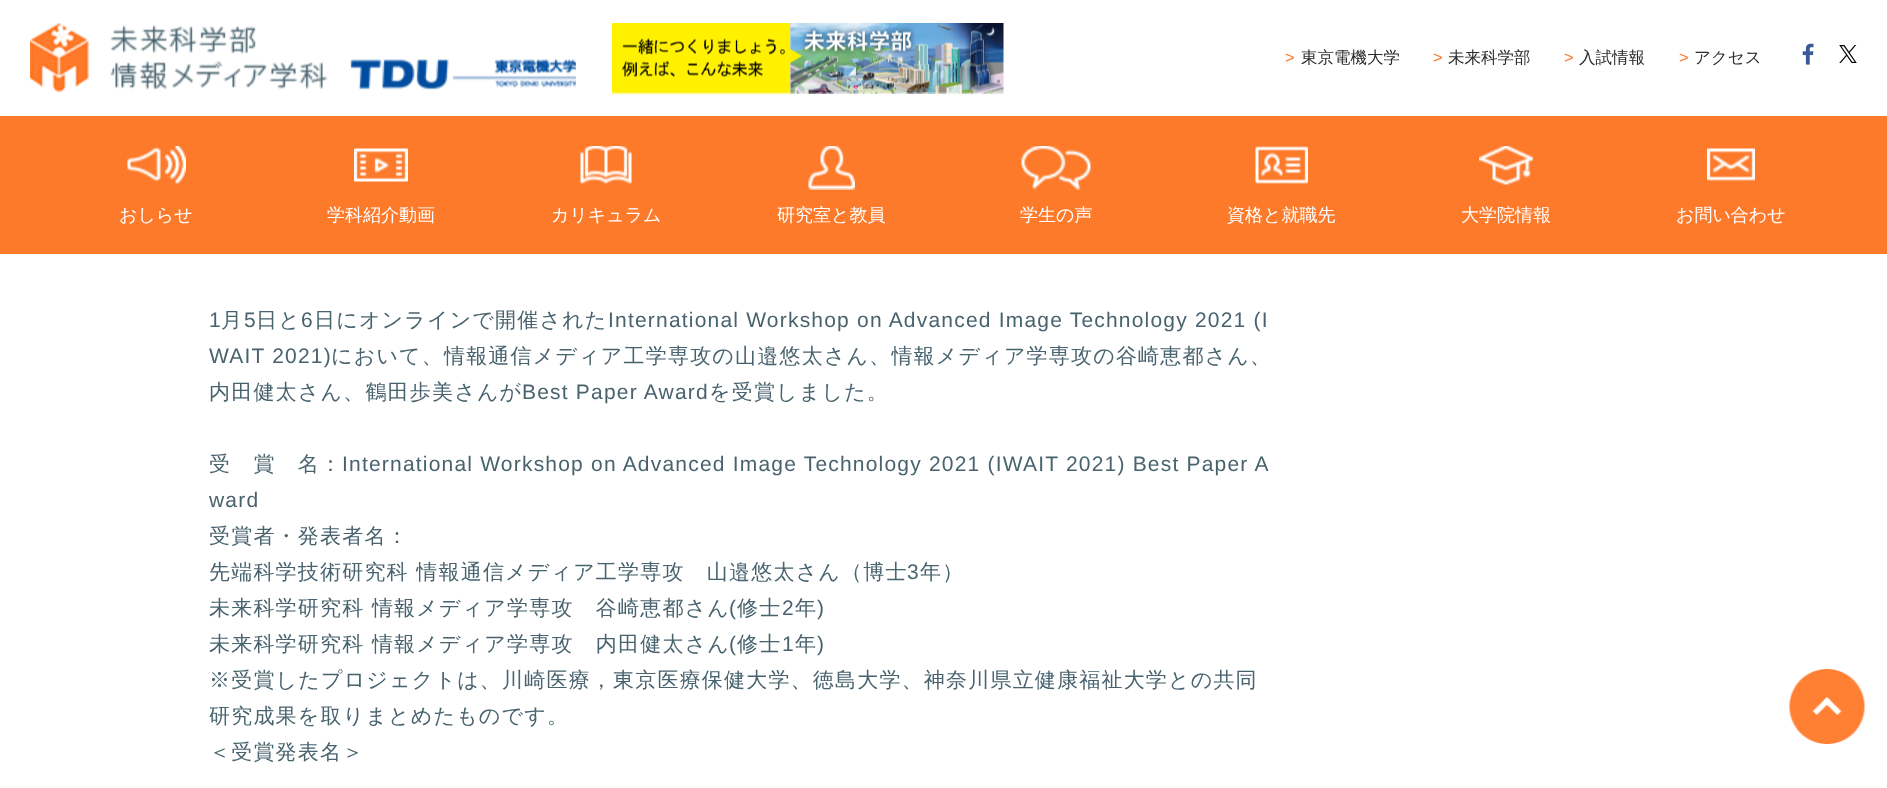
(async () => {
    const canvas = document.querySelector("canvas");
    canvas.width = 1887;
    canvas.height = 788;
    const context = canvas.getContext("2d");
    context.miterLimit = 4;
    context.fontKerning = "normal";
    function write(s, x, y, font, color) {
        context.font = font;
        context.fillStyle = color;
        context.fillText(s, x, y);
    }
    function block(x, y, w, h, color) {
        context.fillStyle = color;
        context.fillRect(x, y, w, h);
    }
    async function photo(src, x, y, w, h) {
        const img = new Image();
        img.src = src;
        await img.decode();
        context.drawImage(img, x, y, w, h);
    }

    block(0, 0, 1887, 788, "rgb(255, 255, 255)");
    await photo("media/1.png", 30, 23, 546, 70);
    await photo("media/2.png", 612, 23, 392, 71);
    context.letterSpacing = "-4px";
    write(">", 1285, 63, "16.5px Liberation Sans", "rgb(254, 122, 43)");
    context.letterSpacing = "0px";
    write("東京電機大学", 1301, 63, "500 16.5px WenQuanYi Zen Hei", "rgb(41, 43, 44)");
    context.letterSpacing = "-4px";
    write(">", 1433, 63, "16.5px Liberation Sans", "rgb(254, 122, 43)");
    context.letterSpacing = "0px";
    write("未来科学部", 1448, 63, "500 16.5px WenQuanYi Zen Hei", "rgb(41, 43, 44)");
    context.letterSpacing = "-4px";
    write(">", 1564, 63, "16.5px Liberation Sans", "rgb(254, 122, 43)");
    context.letterSpacing = "0px";
    write("入試情報", 1579, 63, "500 16.5px WenQuanYi Zen Hei", "rgb(41, 43, 44)");
    context.letterSpacing = "-4px";
    write(">", 1679, 63, "16.5px Liberation Sans", "rgb(254, 122, 43)");
    context.letterSpacing = "0px";
    write("アクセス", 1694, 63, "500 16.5px WenQuanYi Zen Hei", "rgb(41, 43, 44)");
    await photo("media/3.png", 1802, 43, 12, 22);
    await photo("media/4.png", 1839, 45, 18, 18);
    block(0, 116, 1887, 138, "rgb(254, 122, 43)");
    await photo("media/5.png", 127, 146, 59, 38);
    write("おしらせ", 119, 221, "500 18px WenQuanYi Zen Hei", "rgb(255, 255, 255)");
    await photo("media/6.png", 354, 148, 54, 34);
    write("学科紹介動画", 327, 221, "500 18px WenQuanYi Zen Hei", "rgb(255, 255, 255)");
    await photo("media/7.png", 580, 146, 52, 38);
    write("カリキュラム", 551, 221, "500 18px WenQuanYi Zen Hei", "rgb(255, 255, 255)");
    await photo("media/8.png", 808, 146, 47, 44);
    write("研究室と教員", 777, 221, "500 18px WenQuanYi Zen Hei", "rgb(255, 255, 255)");
    await photo("media/9.png", 1021, 146, 70, 44);
    write("学生の声", 1020, 221, "500 18px WenQuanYi Zen Hei", "rgb(255, 255, 255)");
    await photo("media/10.png", 1255, 146, 53, 38);
    write("資格と就職先", 1227, 221, "500 18px WenQuanYi Zen Hei", "rgb(255, 255, 255)");
    await photo("media/11.png", 1479, 146, 54, 39);
    write("大学院情報", 1461, 221, "500 18px WenQuanYi Zen Hei", "rgb(255, 255, 255)");
    await photo("media/12.png", 1707, 148, 48, 33);
    write("お問い合わせ", 1676, 221, "500 18px WenQuanYi Zen Hei", "rgb(255, 255, 255)");
    context.letterSpacing = "1.2px";
    write("1", 209, 327, "21px Liberation Sans", "rgb(72, 99, 110)");
    write("月", 221, 327, "500 21px WenQuanYi Zen Hei", "rgb(72, 99, 110)");
    write("5", 244, 327, "21px Liberation Sans", "rgb(72, 99, 110)");
    write("日と", 256, 327, "500 21px WenQuanYi Zen Hei", "rgb(72, 99, 110)");
    write("6", 301, 327, "21px Liberation Sans", "rgb(72, 99, 110)");
    write("日にオンラインで開催された", 314, 327, "500 21px WenQuanYi Zen Hei", "rgb(72, 99, 110)");
    write("International Workshop on Advanced Image Technology 2021 (I", 608, 327, "21px Liberation Sans", "rgb(72, 99, 110)");
    write("WAIT 2021)", 209, 363, "21px Liberation Sans", "rgb(72, 99, 110)");
    write("において、情報通信メディア工学専攻の山邉悠太さん、情報メディア学専攻の谷崎恵都さん、", 331, 363, "500 21px WenQuanYi Zen Hei", "rgb(72, 99, 110)");
    write("内田健太さん、鶴田歩美さんが", 209, 399, "500 21px WenQuanYi Zen Hei", "rgb(72, 99, 110)");
    write("Best Paper Award", 522, 399, "21px Liberation Sans", "rgb(72, 99, 110)");
    write("を受賞しました。", 709, 399, "500 21px WenQuanYi Zen Hei", "rgb(72, 99, 110)");
    write("受　賞　名：", 209, 471, "500 21px WenQuanYi Zen Hei", "rgb(72, 99, 110)");
    write("International Workshop on Advanced Image Technology 2021 (IWAIT 2021) Best Paper A", 342, 471, "21px Liberation Sans", "rgb(72, 99, 110)");
    write("ward", 209, 507, "21px Liberation Sans", "rgb(72, 99, 110)");
    write("受賞者・発表者名：", 209, 543, "500 21px WenQuanYi Zen Hei", "rgb(72, 99, 110)");
    write("先端科学技術研究科 情報通信メディア工学専攻　山邉悠太さん（博士", 209, 579, "500 21px WenQuanYi Zen Hei", "rgb(72, 99, 110)");
    write("3", 907, 579, "21px Liberation Sans", "rgb(72, 99, 110)");
    write("年）", 920, 579, "500 21px WenQuanYi Zen Hei", "rgb(72, 99, 110)");
    write("未来科学研究科 情報メディア学専攻　谷崎恵都さん", 209, 615, "500 21px WenQuanYi Zen Hei", "rgb(72, 99, 110)");
    write("(", 729, 615, "21px Liberation Sans", "rgb(72, 99, 110)");
    write("修士", 737, 615, "500 21px WenQuanYi Zen Hei", "rgb(72, 99, 110)");
    write("2", 782, 615, "21px Liberation Sans", "rgb(72, 99, 110)");
    write("年", 795, 615, "500 21px WenQuanYi Zen Hei", "rgb(72, 99, 110)");
    write(")", 817, 615, "21px Liberation Sans", "rgb(72, 99, 110)");
    write("未来科学研究科 情報メディア学専攻　内田健太さん", 209, 651, "500 21px WenQuanYi Zen Hei", "rgb(72, 99, 110)");
    write("(", 729, 651, "21px Liberation Sans", "rgb(72, 99, 110)");
    write("修士", 737, 651, "500 21px WenQuanYi Zen Hei", "rgb(72, 99, 110)");
    write("1", 782, 651, "21px Liberation Sans", "rgb(72, 99, 110)");
    write("年", 795, 651, "500 21px WenQuanYi Zen Hei", "rgb(72, 99, 110)");
    write(")", 817, 651, "21px Liberation Sans", "rgb(72, 99, 110)");
    write("※受賞したプロジェクトは、川崎医療，東京医療保健大学、徳島大学、神奈川県立健康福祉大学との共同", 209, 687, "500 21px WenQuanYi Zen Hei", "rgb(72, 99, 110)");
    write("研究成果を取りまとめたものです。", 209, 723, "500 21px WenQuanYi Zen Hei", "rgb(72, 99, 110)");
    write("＜受賞発表名＞", 209, 759, "500 21px WenQuanYi Zen Hei", "rgb(72, 99, 110)");
    await photo("media/13.png", 1789, 669, 76, 75);
})();
